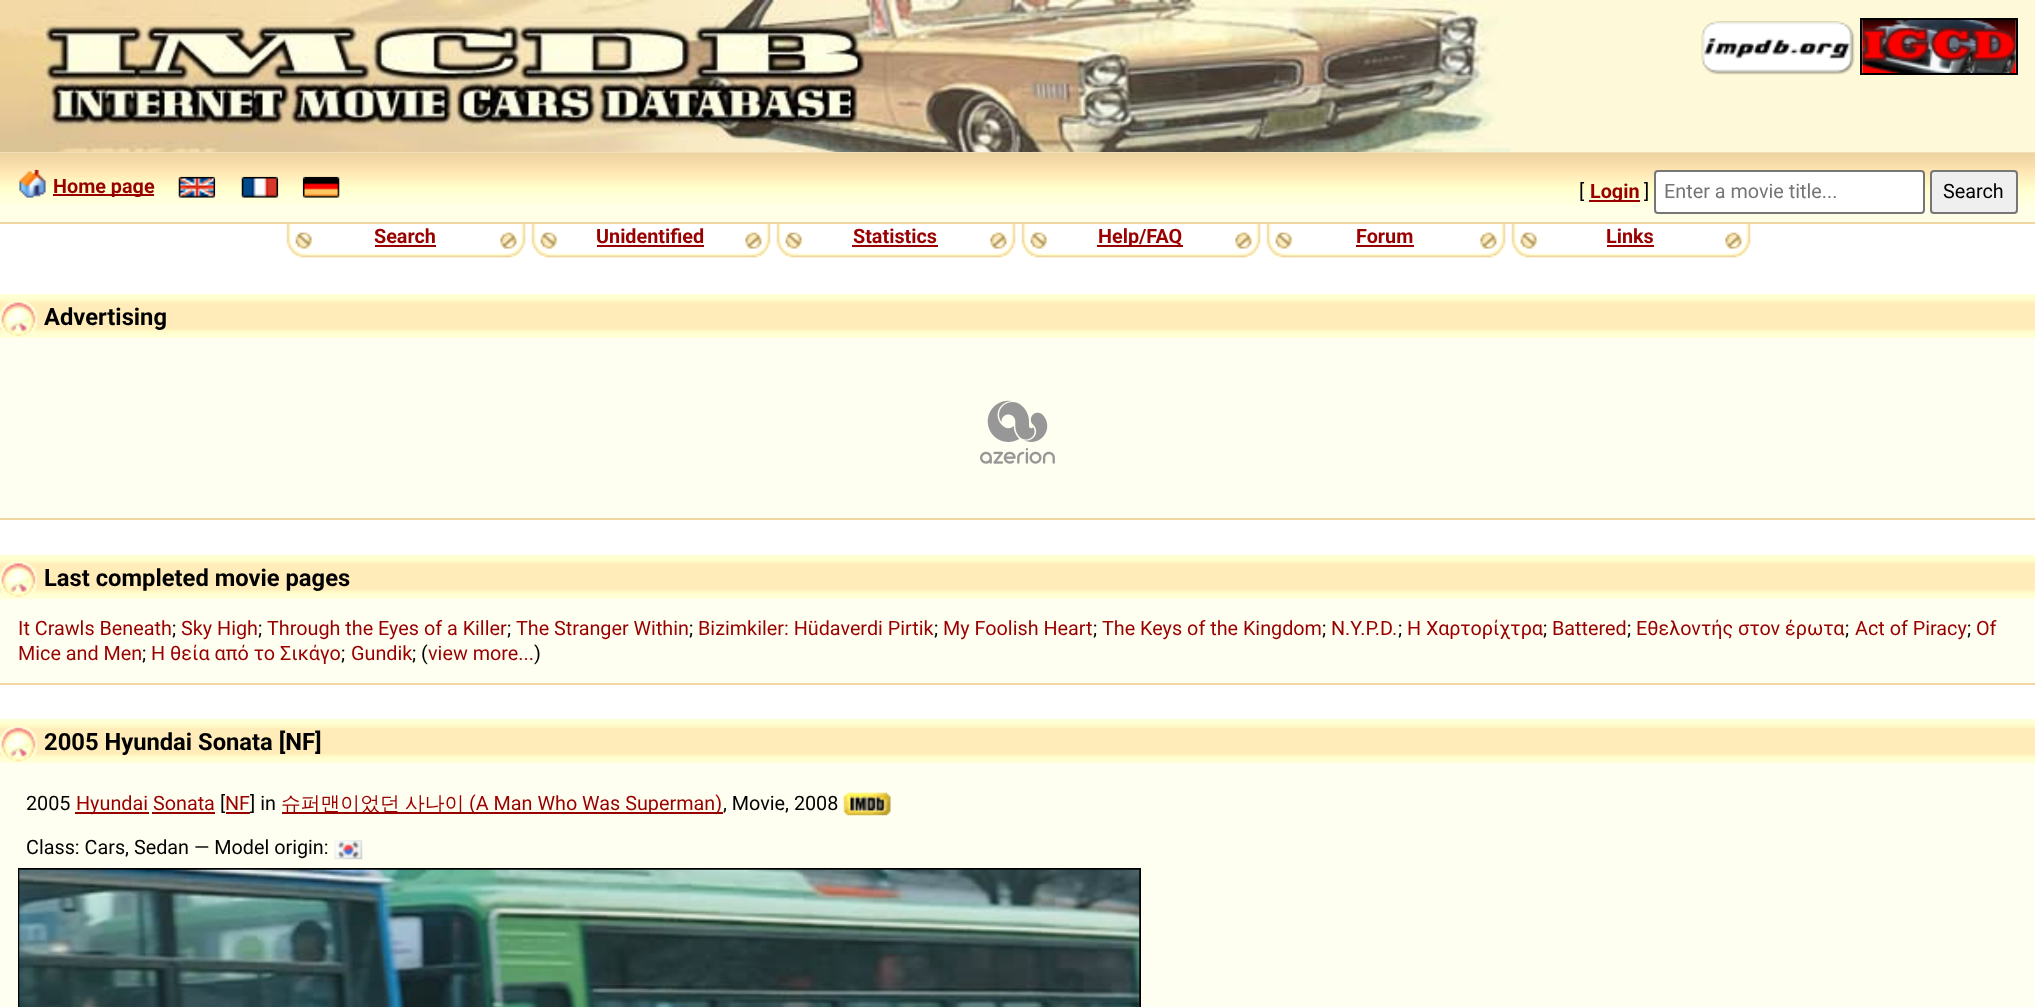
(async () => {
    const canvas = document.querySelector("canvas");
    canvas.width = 2035;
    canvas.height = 1007;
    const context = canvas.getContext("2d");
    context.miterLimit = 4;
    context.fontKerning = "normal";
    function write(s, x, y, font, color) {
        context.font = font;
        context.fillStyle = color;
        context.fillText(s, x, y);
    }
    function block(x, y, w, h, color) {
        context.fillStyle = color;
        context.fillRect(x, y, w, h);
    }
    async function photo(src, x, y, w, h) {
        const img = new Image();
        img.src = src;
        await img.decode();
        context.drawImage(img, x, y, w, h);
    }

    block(0, 0, 2035, 1007, "rgb(255, 255, 255)");
    block(1510, 0, 525, 152, "rgb(254, 249, 217)");
    await photo("media/1.png", 0, 0, 1510, 152);
    await photo("media/3.png", 1862, 20, 154, 53);
    context.strokeStyle = "rgb(0, 0, 0)";
    context.lineWidth = 2;
    context.strokeRect(1861, 19, 156, 55);
    await photo("media/2.png", 1701, 21, 154, 54);
    block(0, 152, 2035, 70, "rgb(255, 255, 231)");
    await photo("media/4.png", 0, 152, 2035, 54);
    block(0, 222, 2035, 2, "rgb(239, 214, 163)");
    await photo("media/5.png", 19, 169, 27, 29);
    block(53, 194, 101, 2, "rgb(153, 0, 0)");
    write("Home page", 53, 193, "bold 19.8px Roboto", "rgb(153, 0, 0)");
    await photo("media/6.png", 178, 176, 38, 22);
    await photo("media/7.png", 241, 176, 38, 22);
    await photo("media/8.png", 302, 176, 38, 22);
    write("[", 1579, 198, "19.8px Roboto", "rgb(0, 0, 0)");
    block(1589, 200, 51, 2, "rgb(153, 0, 0)");
    write("Login", 1590, 198, "bold 19.8px Roboto", "rgb(153, 0, 0)");
    write("]", 1644, 198, "19.8px Roboto", "rgb(0, 0, 0)");
    context.fillStyle = "rgb(255, 255, 255)";
    context.beginPath();
    context.roundRect(1655, 171, 269, 42, 3);
    context.fill();
    context.strokeStyle = "rgb(118, 118, 118)";
    context.stroke();
    write("Enter a movie title...", 1664, 198, "19.8px Roboto", "rgb(117, 117, 117)");
    context.fillStyle = "rgb(239, 239, 239)";
    context.beginPath();
    context.roundRect(1931, 171, 86, 42, 3);
    context.fill();
    context.stroke();
    write("Search", 1943, 198, "19.8px Roboto", "rgb(0, 0, 0)");
    await photo("media/9.png", 286, 224, 240, 34);
    write("Search", 374, 243, "bold 19.8px Roboto", "rgb(153, 0, 0)");
    block(375, 245, 61, 2, "rgb(153, 0, 0)");
    await photo("media/10.png", 531, 224, 240, 34);
    write("Unidentified", 596, 243, "bold 19.8px Roboto", "rgb(153, 0, 0)");
    block(597, 245, 107, 2, "rgb(153, 0, 0)");
    await photo("media/10.png", 776, 224, 240, 34);
    write("Statistics", 853, 243, "bold 19.8px Roboto", "rgb(153, 0, 0)");
    block(852, 245, 86, 2, "rgb(153, 0, 0)");
    await photo("media/10.png", 1021, 224, 240, 34);
    block(1097, 245, 86, 2, "rgb(153, 0, 0)");
    write("Help/FAQ", 1098, 243, "bold 19.8px Roboto", "rgb(153, 0, 0)");
    await photo("media/9.png", 1266, 224, 240, 34);
    write("Forum", 1356, 243, "bold 19.8px Roboto", "rgb(153, 0, 0)");
    block(1356, 245, 58, 2, "rgb(153, 0, 0)");
    await photo("media/11.png", 1511, 224, 240, 34);
    write("Links", 1606, 243, "bold 19.8px Roboto", "rgb(153, 0, 0)");
    block(1607, 245, 47, 2, "rgb(153, 0, 0)");
    block(0, 338, 2035, 180, "rgb(255, 255, 241)");
    block(0, 518, 2035, 2, "rgb(239, 214, 163)");
    block(0, 294, 2035, 44, "rgb(255, 255, 215)");
    await photo("media/12.png", 0, 297, 2035, 38);
    await photo("media/13.png", 0, 300, 38, 37);
    write("Advertising", 44, 325, "bold 23.75px Roboto", "rgb(0, 0, 0)");
    await photo("media/14.png", 980, 400, 75, 64);
    block(0, 599, 2035, 84, "rgb(255, 255, 241)");
    block(0, 683, 2035, 2, "rgb(239, 214, 163)");
    block(0, 595, 2035, 4, "rgb(255, 255, 215)");
    await photo("media/15.png", 0, 554, 2035, 41);
    await photo("media/16.png", 0, 561, 38, 37);
    write("Last completed movie pages", 44, 586, "bold 23.75px Roboto", "rgb(0, 0, 0)");
    write("It Crawls Beneath", 18, 635, "19.8px Roboto", "rgb(153, 0, 0)");
    write(";", 172, 635, "19.8px Roboto", "rgb(0, 0, 0)");
    write("Sky High", 181, 635, "19.8px Roboto", "rgb(153, 0, 0)");
    write(";", 258, 635, "19.8px Roboto", "rgb(0, 0, 0)");
    write("Through the Eyes of a Killer", 267, 635, "19.8px Roboto", "rgb(153, 0, 0)");
    write(";", 507, 635, "19.8px Roboto", "rgb(0, 0, 0)");
    write("The Stranger Within", 516, 635, "19.8px Roboto", "rgb(153, 0, 0)");
    write(";", 689, 635, "19.8px Roboto", "rgb(0, 0, 0)");
    write("Bizimkiler: Hüdaverdi Pirtik", 698, 635, "19.8px Roboto", "rgb(153, 0, 0)");
    write(";", 934, 635, "19.8px Roboto", "rgb(0, 0, 0)");
    write("My Foolish Heart", 943, 635, "19.8px Roboto", "rgb(153, 0, 0)");
    write(";", 1093, 635, "19.8px Roboto", "rgb(0, 0, 0)");
    write("The Keys of the Kingdom", 1102, 635, "19.8px Roboto", "rgb(153, 0, 0)");
    write(";", 1322, 635, "19.8px Roboto", "rgb(0, 0, 0)");
    write("N.Y.P.D.", 1331, 635, "19.8px Roboto", "rgb(153, 0, 0)");
    write(";", 1398, 635, "19.8px Roboto", "rgb(0, 0, 0)");
    write("Η Χαρτορίχτρα", 1407, 635, "19.8px Roboto", "rgb(153, 0, 0)");
    write(";", 1543, 635, "19.8px Roboto", "rgb(0, 0, 0)");
    write("Battered", 1552, 635, "19.8px Roboto", "rgb(153, 0, 0)");
    write(";", 1627, 635, "19.8px Roboto", "rgb(0, 0, 0)");
    write("Εθελοντής στον έρωτα", 1636, 635, "19.8px Roboto", "rgb(153, 0, 0)");
    write(";", 1845, 635, "19.8px Roboto", "rgb(0, 0, 0)");
    write("Act of Piracy", 1855, 635, "19.8px Roboto", "rgb(153, 0, 0)");
    write(";", 1967, 635, "19.8px Roboto", "rgb(0, 0, 0)");
    write("Of", 1976, 635, "19.8px Roboto", "rgb(153, 0, 0)");
    write("Mice and Men", 18, 660, "19.8px Roboto", "rgb(153, 0, 0)");
    write(";", 142, 660, "19.8px Roboto", "rgb(0, 0, 0)");
    write("Η θεία από το Σικάγο", 151, 660, "19.8px Roboto", "rgb(153, 0, 0)");
    write(";", 341, 660, "19.8px Roboto", "rgb(0, 0, 0)");
    write("Gundik", 351, 660, "19.8px Roboto", "rgb(153, 0, 0)");
    write("; (", 412, 660, "19.8px Roboto", "rgb(0, 0, 0)");
    write("view more...", 428, 660, "19.8px Roboto", "rgb(153, 0, 0)");
    write(")", 534, 660, "19.8px Roboto", "rgb(0, 0, 0)");
    block(0, 763, 2035, 244, "rgb(255, 255, 241)");
    block(0, 719, 2035, 44, "rgb(255, 255, 215)");
    await photo("media/17.png", 0, 722, 2035, 38);
    await photo("media/18.png", 0, 726, 38, 36);
    write("2005 Hyundai Sonata [NF]", 44, 750, "bold 23.75px Roboto", "rgb(0, 0, 0)");
    write("2005", 26, 810, "19.8px Roboto", "rgb(0, 0, 0)");
    block(75, 812, 74, 2, "rgb(153, 0, 0)");
    write("Hyundai Sonata", 76, 810, "19.8px Roboto", "rgb(153, 0, 0)");
    write("[", 220, 810, "19.8px Roboto", "rgb(0, 0, 0)");
    write("NF", 225, 810, "19.8px Roboto", "rgb(153, 0, 0)");
    block(226, 812, 24, 2, "rgb(153, 0, 0)");
    write("] in", 250, 810, "19.8px Roboto", "rgb(0, 0, 0)");
    block(282, 812, 441, 2, "rgb(153, 0, 0)");
    write("슈퍼맨이었던", 281, 810, "500 19.8px WenQuanYi Zen Hei", "rgb(153, 0, 0)");
    write("사나이", 405, 810, "500 19.8px WenQuanYi Zen Hei", "rgb(153, 0, 0)");
    write("(A Man Who Was Superman)", 469, 810, "19.8px Roboto", "rgb(153, 0, 0)");
    write(", Movie, 2008", 723, 810, "19.8px Roboto", "rgb(0, 0, 0)");
    await photo("media/19.png", 843, 792, 48, 24);
    block(152, 812, 63, 2, "rgb(153, 0, 0)");
    write("Class: Cars, Sedan — Model origin:", 26, 854, "19.8px Roboto", "rgb(0, 0, 0)");
    await photo("media/20.png", 334, 840, 29, 20);
    context.strokeStyle = "rgb(0, 0, 0)";
    context.strokeRect(19, 869, 1121, 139);
    await photo("media/21.png", 19, 869, 1121, 138);
})();
